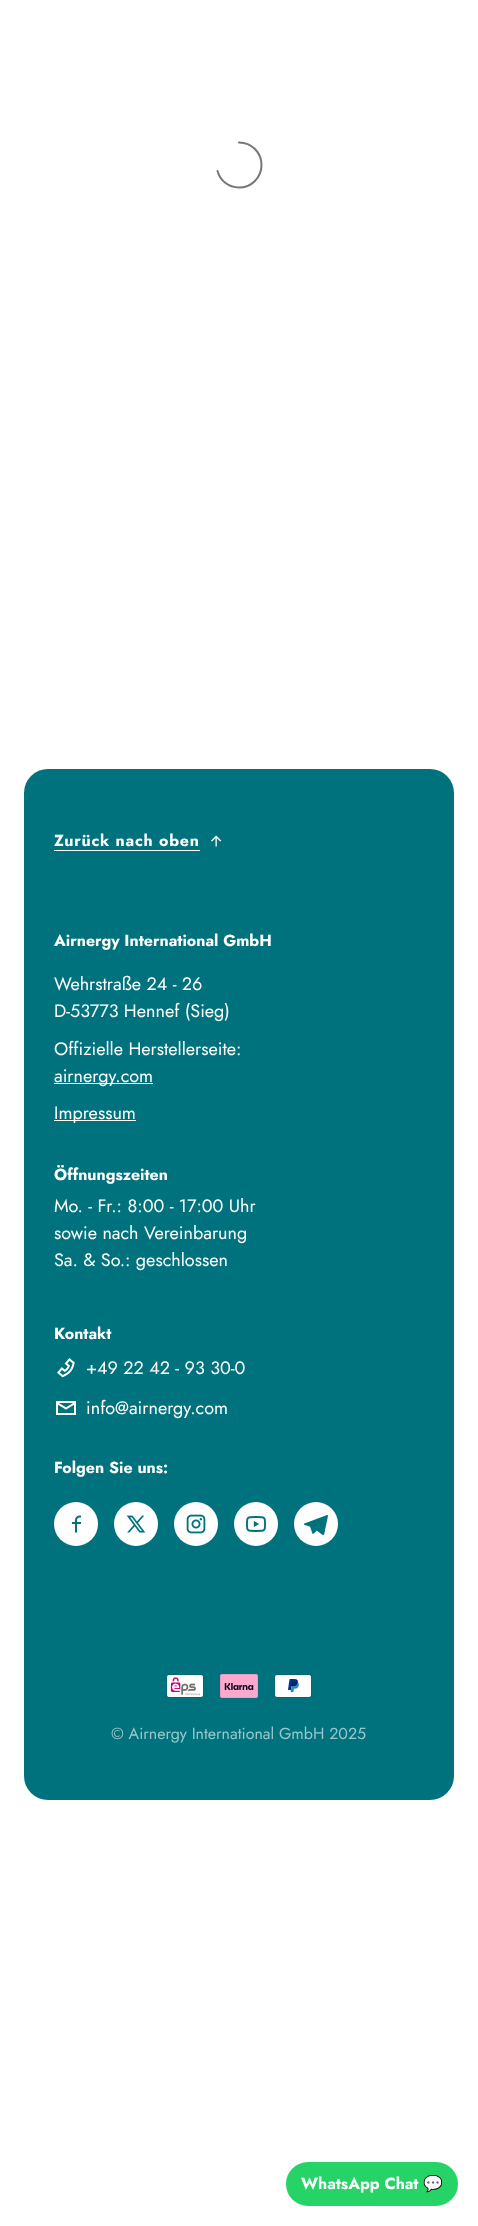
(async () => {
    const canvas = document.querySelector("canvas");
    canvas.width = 478;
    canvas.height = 2226;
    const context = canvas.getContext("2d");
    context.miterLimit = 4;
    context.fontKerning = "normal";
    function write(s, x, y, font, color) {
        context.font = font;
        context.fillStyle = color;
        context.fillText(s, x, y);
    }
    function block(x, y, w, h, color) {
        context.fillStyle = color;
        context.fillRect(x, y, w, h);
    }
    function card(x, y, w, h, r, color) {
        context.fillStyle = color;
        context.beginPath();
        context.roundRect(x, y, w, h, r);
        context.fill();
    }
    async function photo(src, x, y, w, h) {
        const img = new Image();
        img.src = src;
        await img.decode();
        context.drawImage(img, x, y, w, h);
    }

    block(0, 0, 478, 2226, "rgb(255, 255, 255)");
    context.beginPath();
    context.moveTo(239, 142.5);
    context.bezierCurveTo(251.5, 142.5, 261.5, 152.5, 261.5, 165);
    context.bezierCurveTo(261.5, 177.5, 251.5, 187.5, 239, 187.5);
    context.bezierCurveTo(228.5, 187.5, 220, 180.5, 217.5, 171);
    context.strokeStyle = "rgb(119, 119, 119)";
    context.lineWidth = 2;
    context.lineCap = "round";
    context.stroke();
    card(24, 769, 430, 1031, 24, "rgb(0, 114, 125)");
    context.letterSpacing = "0.75px";
    write("Zurück nach oben", 54, 846, "bold 16px Jost", "rgb(255, 255, 255)");
    block(54, 850, 146, 1, "rgb(255, 255, 255)");
    await photo("media/1.png", 211, 835, 11, 12);
    context.letterSpacing = "0px";
    write("Airnergy International GmbH", 54, 946, "bold 16px Jost", "rgb(255, 255, 255)");
    write("Wehrstraße 24 - 26", 54, 990, "18px Jost", "rgb(255, 255, 255)");
    write("D-53773 Hennef (Sieg)", 54, 1017, "18px Jost", "rgb(255, 255, 255)");
    write("Offizielle Herstellerseite:", 54, 1055, "18px Jost", "rgb(255, 255, 255)");
    block(54, 1083, 99, 1, "rgb(255, 255, 255)");
    write("airnergy.com", 54, 1082, "18px Jost", "rgb(255, 255, 255)");
    block(54, 1120, 82, 1, "rgb(255, 255, 255)");
    write("Impressum", 54, 1119, "18px Jost", "rgb(255, 255, 255)");
    write("Öffnungszeiten", 54, 1180, "bold 16px Jost", "rgb(255, 255, 255)");
    write("Mo. - Fr.: 8:00 - 17:00 Uhr", 54, 1212, "18px Jost", "rgb(255, 255, 255)");
    write("sowie nach Vereinbarung", 54, 1239, "18px Jost", "rgb(255, 255, 255)");
    write("Sa. & So.: geschlossen", 54, 1266, "18px Jost", "rgb(255, 255, 255)");
    write("Kontakt", 54, 1339, "bold 16px Jost", "rgb(255, 255, 255)");
    await photo("media/2.png", 57, 1358, 18, 20);
    write("+49 22 42 - 93 30-0", 86, 1374, "18px Jost", "rgb(255, 255, 255)");
    await photo("media/3.png", 56, 1401, 20, 14);
    write("info@airnergy.com", 86, 1414, "18px Jost", "rgb(255, 255, 255)");
    write("Folgen Sie uns:", 54, 1473, "bold 16px Jost", "rgb(255, 255, 255)");
    context.beginPath();
    context.arc(76, 1524, 22, 0, Math.PI * 2);
    context.fill();
    await photo("media/4.png", 72, 1515, 9, 18);
    context.beginPath();
    context.arc(136, 1524, 22, 0, Math.PI * 2);
    context.fill();
    await photo("media/5.png", 126, 1515, 20, 18);
    context.beginPath();
    context.arc(196, 1524, 22, 0, Math.PI * 2);
    context.fill();
    await photo("media/6.png", 186, 1514, 20, 20);
    context.beginPath();
    context.arc(256, 1524, 22, 0, Math.PI * 2);
    context.fill();
    await photo("media/7.png", 246, 1516, 20, 16);
    context.beginPath();
    context.arc(316, 1524, 22, 0, Math.PI * 2);
    context.fill();
    await photo("media/8.png", 304, 1515, 24, 20);
    await photo("media/9.png", 166, 1674, 38, 24);
    await photo("media/10.png", 220, 1674, 38, 24);
    await photo("media/11.png", 274, 1674, 38, 24);
    write("© Airnergy International GmbH 2025", 111, 1739, "16px Jost", "rgb(153, 199, 203)");
    card(286, 2162, 172, 44, 22, "rgb(37, 211, 102)");
    write("WhatsApp Chat", 301, 2189, "bold 16px Jost", "rgb(255, 255, 255)");
    write("💬", 423, 2189, "bold 16px Noto Color Emoji", "rgb(255, 255, 255)");
})();
